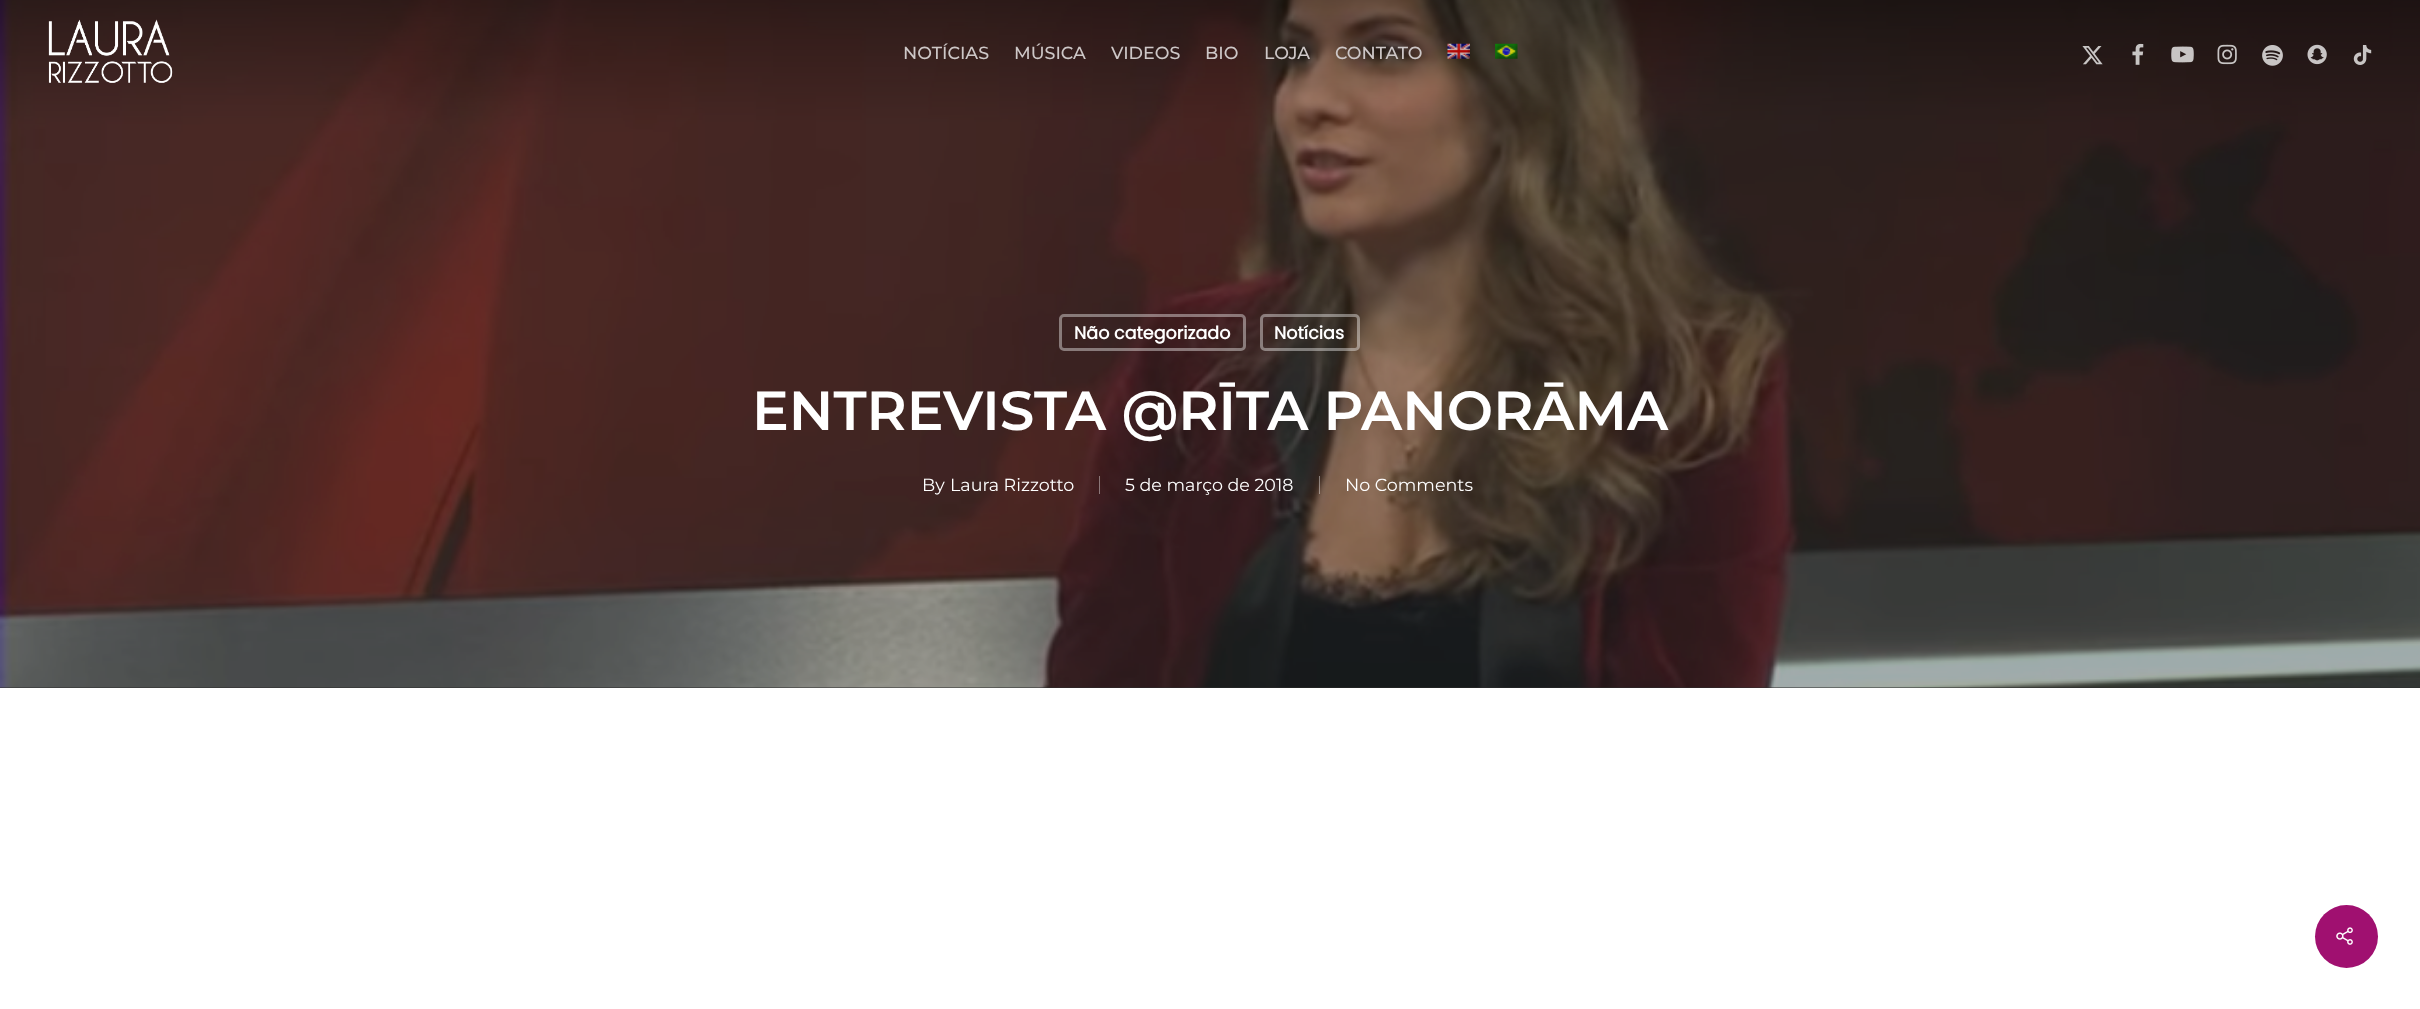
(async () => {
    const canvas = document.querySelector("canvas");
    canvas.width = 2420;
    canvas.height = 1009;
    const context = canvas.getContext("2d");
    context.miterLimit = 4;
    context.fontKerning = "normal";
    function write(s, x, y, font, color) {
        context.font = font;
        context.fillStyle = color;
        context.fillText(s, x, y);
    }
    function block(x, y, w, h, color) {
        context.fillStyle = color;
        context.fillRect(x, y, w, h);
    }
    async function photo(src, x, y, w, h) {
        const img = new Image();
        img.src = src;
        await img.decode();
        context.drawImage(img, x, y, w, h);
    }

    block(0, 0, 2420, 1009, "rgb(45, 45, 45)");
    await photo("media/11.png", 0, 0, 2420, 688);
    await photo("media/1.png", 48, 19, 125, 64);
    write("NOTÍCIAS", 903, 59, "500 17.5px Montserrat", "rgb(205, 199, 199)");
    write("MÚSICA", 1014, 59, "500 17.5px Montserrat", "rgb(205, 199, 199)");
    write("VIDEOS", 1111, 59, "500 17.5px Montserrat", "rgb(205, 199, 199)");
    write("BIO", 1205, 59, "500 17.5px Montserrat", "rgb(205, 199, 199)");
    write("LOJA", 1264, 59, "500 17.5px Montserrat", "rgb(205, 199, 199)");
    write("CONTATO", 1335, 59, "500 17.5px Montserrat", "rgb(205, 199, 199)");
    await photo("media/2.png", 1447, 43, 23, 16);
    await photo("media/3.png", 1495, 43, 23, 16);
    await photo("media/4.png", 2082, 46, 21, 19);
    await photo("media/5.png", 2132, 43, 12, 22);
    await photo("media/6.png", 2171, 46, 23, 17);
    await photo("media/7.png", 2217, 44, 20, 21);
    await photo("media/8.png", 2262, 45, 21, 21);
    await photo("media/9.png", 2307, 44, 20, 21);
    await photo("media/10.png", 2353, 45, 19, 20);
    context.beginPath();
    context.roundRect(1060.5, 315.5, 184, 34, 3.5);
    context.strokeStyle = "rgba(255, 255, 255, 0.4)";
    context.lineWidth = 3;
    context.stroke();
    write("Não categorizado", 1074, 339, "bold 17.5px Poppins", "rgb(255, 255, 255)");
    context.beginPath();
    context.roundRect(1261.5, 315.5, 97, 34, 3.5);
    context.stroke();
    write("Notícias", 1274, 339, "bold 17.5px Poppins", "rgb(255, 255, 255)");
    write("ENTREVISTA @RĪTA PANORĀMA", 752, 430, "600 55px Montserrat", "rgb(255, 255, 255)");
    write("By", 922, 491, "17.5px Montserrat", "rgb(255, 255, 255)");
    write("Laura Rizzotto", 950, 491, "17.5px Montserrat", "rgb(255, 255, 255)");
    block(1099, 476, 1, 18, "rgba(255, 255, 255, 0.4)");
    write("5 de março de 2018", 1125, 491, "17.5px Montserrat", "rgb(255, 255, 255)");
    block(1319, 476, 1, 18, "rgba(255, 255, 255, 0.4)");
    write("No Comments", 1345, 491, "17.5px Montserrat", "rgb(255, 255, 255)");
    block(0, 688, 2420, 321, "rgb(255, 255, 255)");
    context.fillStyle = "rgb(160, 16, 112)";
    context.beginPath();
    context.arc(2346.5, 936.5, 31.5, 0, Math.PI * 2);
    context.fill();
    await photo("media/12.png", 2336, 927, 17, 18);
})();
